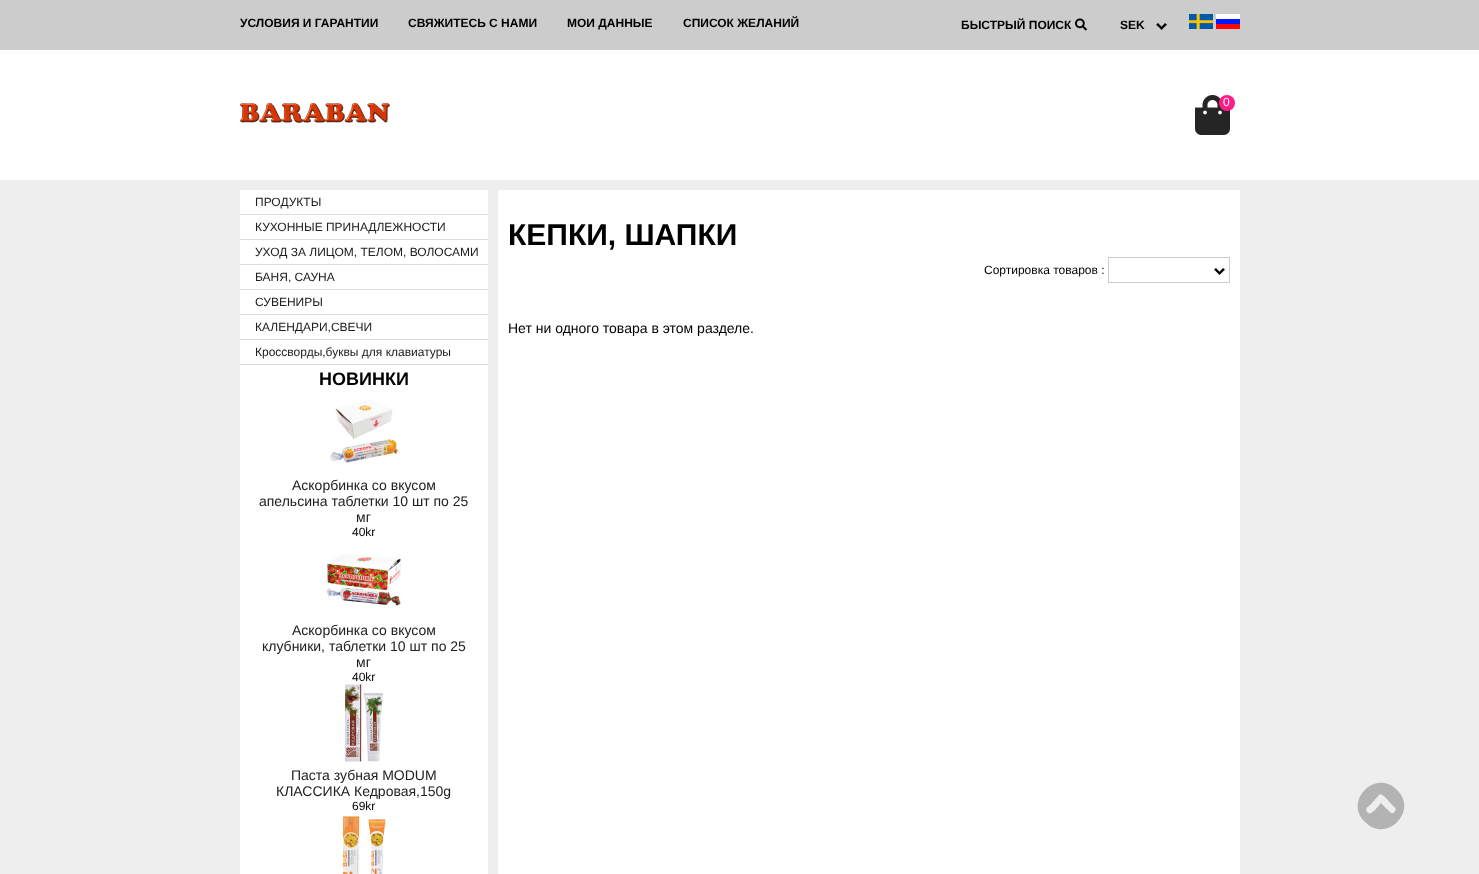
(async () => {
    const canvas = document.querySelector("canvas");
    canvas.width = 1479;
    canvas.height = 874;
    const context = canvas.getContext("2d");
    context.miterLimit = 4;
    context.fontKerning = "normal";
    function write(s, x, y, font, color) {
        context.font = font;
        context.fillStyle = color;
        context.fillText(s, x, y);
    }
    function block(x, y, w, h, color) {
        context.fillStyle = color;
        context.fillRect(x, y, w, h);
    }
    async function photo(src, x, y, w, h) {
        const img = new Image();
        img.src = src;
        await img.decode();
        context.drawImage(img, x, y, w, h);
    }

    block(0, 0, 1479, 874, "rgb(238, 238, 238)");
    block(0, 0, 1479, 50, "rgb(204, 204, 204)");
    write("УСЛОВИЯ И ГАРАНТИИ", 240, 27, "bold 12px Liberation Sans", "rgb(0, 0, 0)");
    write("СВЯЖИТЕСЬ С НАМИ", 408, 27, "bold 12px Liberation Sans", "rgb(0, 0, 0)");
    write("МОИ ДАННЫЕ", 567, 27, "bold 12px Liberation Sans", "rgb(0, 0, 0)");
    write("СПИСОК ЖЕЛАНИЙ", 683, 27, "bold 12px Liberation Sans", "rgb(0, 0, 0)");
    write("БЫСТРЫЙ ПОИСК", 961, 29, "bold 12px Liberation Sans", "rgb(0, 0, 0)");
    await photo("media/1.png", 1075, 18, 12, 13);
    await photo("media/2.png", 1156, 23, 11, 7);
    write("SEK", 1120, 29, "bold 12px Liberation Sans", "rgb(0, 0, 0)");
    await photo("media/3.png", 1189, 14, 24, 15);
    await photo("media/4.png", 1216, 14, 24, 15);
    block(0, 50, 1479, 130, "rgb(255, 255, 255)");
    await photo("media/5.png", 1195, 95, 35, 40);
    context.fillStyle = "rgb(255, 28, 134)";
    context.beginPath();
    context.arc(1227, 103, 8, 0, Math.PI * 2);
    context.fill();
    write("0", 1223, 106, "12px Liberation Sans", "rgb(255, 255, 255)");
    await photo("media/6.png", 240, 103, 150, 20);
    block(240, 190, 248, 174, "rgb(255, 255, 255)");
    block(240, 214, 248, 1, "rgb(221, 221, 221)");
    write("ПРОДУКТЫ", 255, 206, "12px Liberation Sans", "rgb(32, 32, 32)");
    block(240, 239, 248, 1, "rgb(221, 221, 221)");
    write("КУХОННЫЕ ПРИНАДЛЕЖНОСТИ", 255, 231, "12px Liberation Sans", "rgb(32, 32, 32)");
    block(240, 264, 248, 1, "rgb(221, 221, 221)");
    write("УХОД ЗА ЛИЦОМ, ТЕЛОМ, ВОЛОСАМИ", 255, 256, "12px Liberation Sans", "rgb(32, 32, 32)");
    block(240, 289, 248, 1, "rgb(221, 221, 221)");
    write("БАНЯ, САУНА", 255, 281, "12px Liberation Sans", "rgb(32, 32, 32)");
    block(240, 314, 248, 1, "rgb(221, 221, 221)");
    write("СУВЕНИРЫ", 255, 306, "12px Liberation Sans", "rgb(32, 32, 32)");
    block(240, 339, 248, 1, "rgb(221, 221, 221)");
    write("КАЛЕНДАРИ,СВЕЧИ", 255, 331, "12px Liberation Sans", "rgb(32, 32, 32)");
    block(240, 364, 248, 1, "rgb(221, 221, 221)");
    write("Кроссворды,буквы для клавиатуры", 255, 356, "12px Liberation Sans", "rgb(32, 32, 32)");
    block(240, 365, 248, 509, "rgb(255, 255, 255)");
    write("НОВИНКИ", 319, 385, "bold 18px Liberation Sans", "rgb(0, 0, 0)");
    await photo("media/7.png", 330, 400, 68, 63);
    write("Аскорбинка со вкусом", 292, 490, "14px Liberation Sans", "rgb(32, 32, 32)");
    write("апельсина таблетки 10 шт по 25", 259, 506, "14px Liberation Sans", "rgb(32, 32, 32)");
    write("мг", 356, 522, "14px Liberation Sans", "rgb(32, 32, 32)");
    write("40kr", 352, 536, "12px Liberation Sans", "rgb(0, 0, 0)");
    await photo("media/8.png", 326, 554, 75, 52);
    write("Аскорбинка со вкусом", 292, 635, "14px Liberation Sans", "rgb(32, 32, 32)");
    write("клубники, таблетки 10 шт по 25", 262, 651, "14px Liberation Sans", "rgb(32, 32, 32)");
    write("мг", 356, 667, "14px Liberation Sans", "rgb(32, 32, 32)");
    write("40kr", 352, 681, "12px Liberation Sans", "rgb(0, 0, 0)");
    await photo("media/9.png", 345, 684, 38, 78);
    write("Паста зубная MODUM", 291, 780, "14px Liberation Sans", "rgb(32, 32, 32)");
    write("КЛАССИКА Кедровая,150g", 276, 796, "14px Liberation Sans", "rgb(32, 32, 32)");
    write("69kr", 352, 810, "12px Liberation Sans", "rgb(0, 0, 0)");
    await photo("media/10.png", 342, 816, 44, 58);
    block(498, 190, 742, 684, "rgb(255, 255, 255)");
    write("КЕПКИ, ШАПКИ", 508, 245, "bold 30px Liberation Sans", "rgb(0, 0, 0)");
    write("Сортировка товаров :", 984, 274, "12px Liberation Sans", "rgb(0, 0, 0)");
    await photo("media/11.png", 1214, 268, 11, 7);
    context.strokeStyle = "rgb(204, 204, 204)";
    context.strokeRect(1108.5, 257.5, 121, 25);
    write("Нет ни одного товара в этом разделе.", 508, 333, "14px Liberation Sans", "rgb(0, 0, 0)");
    context.fillStyle = "rgb(179, 179, 179)";
    context.beginPath();
    context.moveTo(1365, 822);
    context.bezierCurveTo(1343, 801, 1376, 768, 1397, 790);
    context.bezierCurveTo(1419, 811, 1386, 844, 1365, 822);
    context.closePath();
    context.moveTo(1379, 795);
    context.lineTo(1371, 804);
    context.bezierCurveTo(1367, 808, 1364, 808, 1368, 813);
    context.bezierCurveTo(1371, 815, 1373, 811, 1375, 810);
    context.lineTo(1381, 803);
    context.bezierCurveTo(1383, 805, 1390, 813, 1392, 813);
    context.bezierCurveTo(1393, 814, 1394, 812, 1395, 811);
    context.bezierCurveTo(1397, 809, 1395, 807, 1393, 806);
    context.lineTo(1385, 797);
    context.bezierCurveTo(1383, 796, 1381, 793, 1379, 795);
    context.closePath();
    context.fill();
})();
